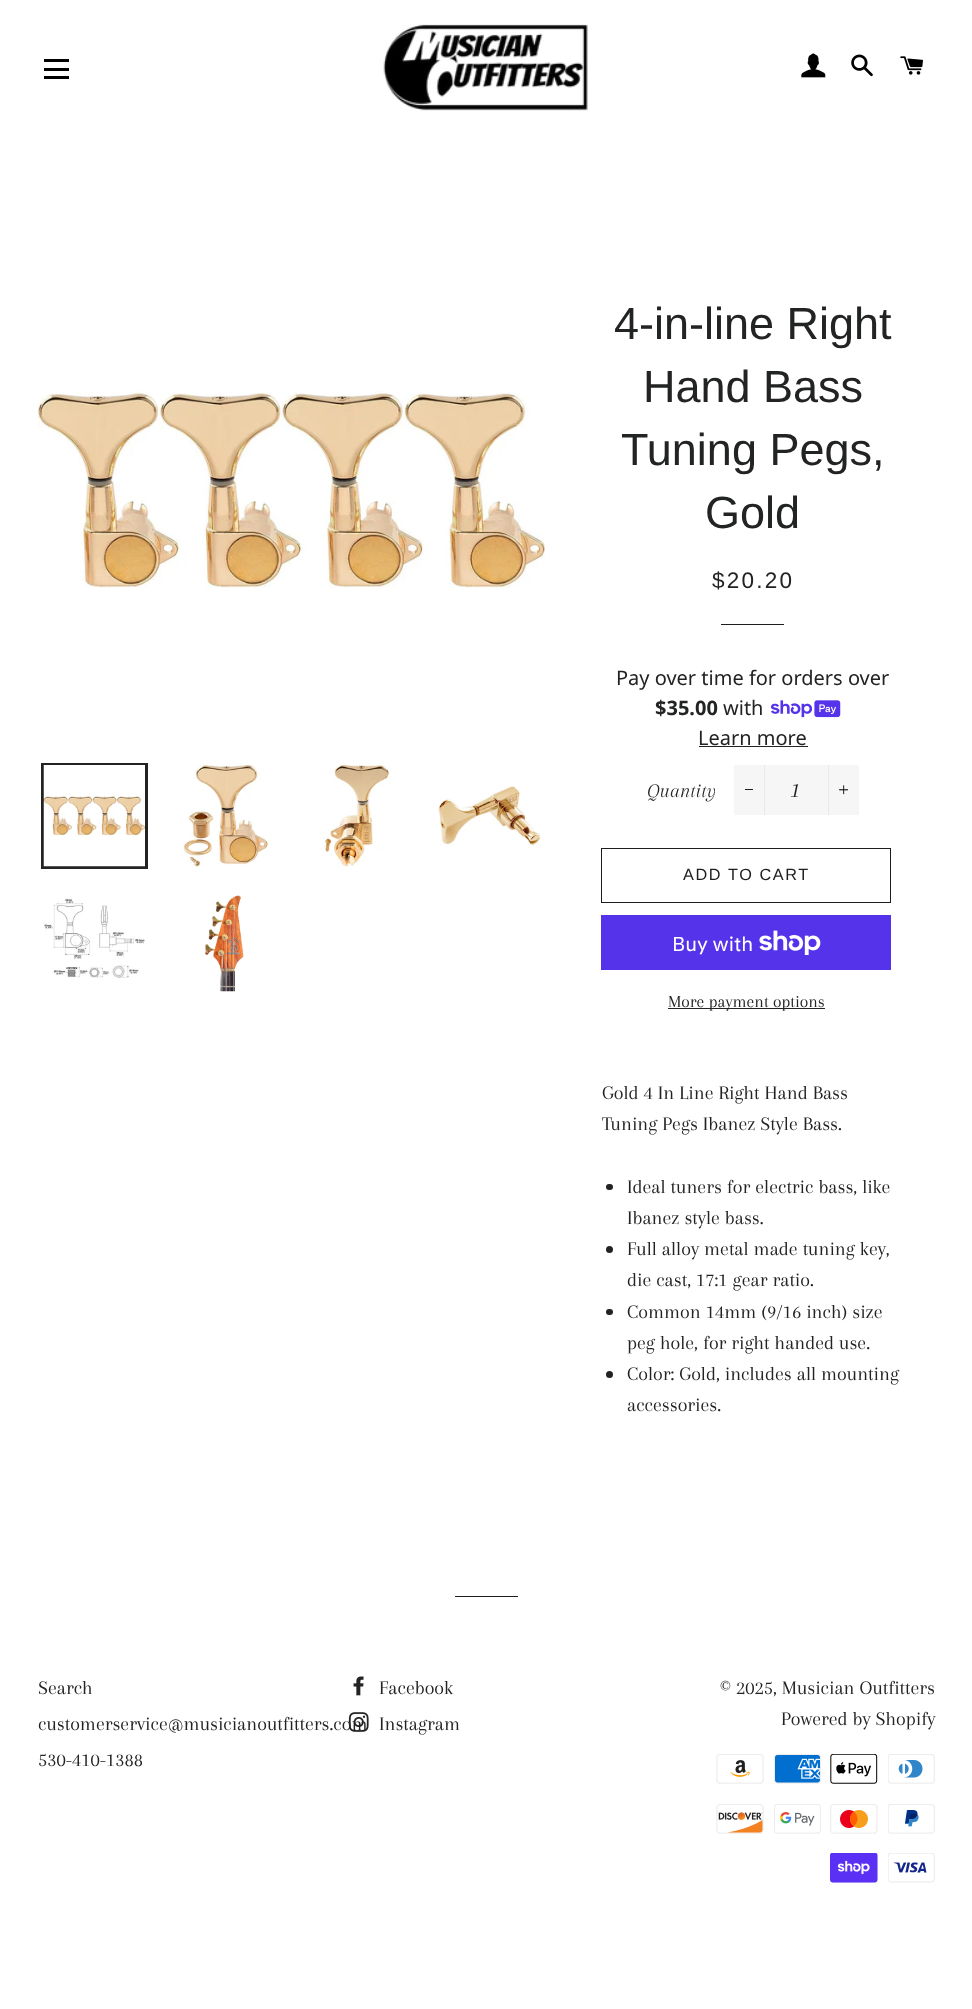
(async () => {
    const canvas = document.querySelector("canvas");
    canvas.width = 972;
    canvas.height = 2009;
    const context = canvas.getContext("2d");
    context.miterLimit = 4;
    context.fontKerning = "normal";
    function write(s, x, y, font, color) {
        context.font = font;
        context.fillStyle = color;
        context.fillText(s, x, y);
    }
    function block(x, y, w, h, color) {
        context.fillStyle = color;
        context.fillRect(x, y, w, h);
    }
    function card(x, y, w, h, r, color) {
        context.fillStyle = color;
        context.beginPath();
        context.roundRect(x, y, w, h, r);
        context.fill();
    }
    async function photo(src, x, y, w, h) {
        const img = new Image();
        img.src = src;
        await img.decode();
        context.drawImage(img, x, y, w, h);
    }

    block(0, 0, 972, 2009, "rgb(255, 255, 255)");
    block(44, 59, 25, 3, "rgb(0, 0, 0)");
    block(44, 68, 25, 3, "rgb(0, 0, 0)");
    block(44, 76, 25, 3, "rgb(0, 0, 0)");
    await photo("media/1.png", 383, 24, 205, 87);
    await photo("media/2.png", 801, 53, 25, 25);
    await photo("media/3.png", 851, 54, 22, 23);
    await photo("media/4.png", 900, 56, 23, 19);
    await photo("media/5.png", 37, 391, 508, 197);
    context.strokeStyle = "rgb(34, 35, 35)";
    context.lineWidth = 3;
    context.strokeRect(42.5, 764.5, 104, 103);
    await photo("media/6.png", 43, 765, 102, 102);
    await photo("media/7.png", 182, 765, 90, 102);
    await photo("media/8.png", 323, 765, 67, 102);
    await photo("media/9.png", 438, 786, 102, 60);
    await photo("media/10.png", 44, 898, 101, 80);
    await photo("media/11.png", 205, 895, 39, 97);
    write("4-in-line Right", 614, 339, "45px Liberation Sans", "rgb(34, 35, 35)");
    write("Hand Bass", 643, 402, "45px Liberation Sans", "rgb(34, 35, 35)");
    write("Tuning Pegs,", 621, 465, "45px Liberation Sans", "rgb(34, 35, 35)");
    write("Gold", 705, 528, "45px Liberation Sans", "rgb(34, 35, 35)");
    context.letterSpacing = "2.25px";
    write("$20.20", 712, 588, "22.5px Liberation Sans", "rgb(34, 35, 35)");
    block(721, 624, 63, 1, "rgb(28, 29, 29)");
    context.letterSpacing = "0px";
    write("Pay over time for orders over", 616, 685, "20px Noto Sans", "rgb(34, 35, 35)");
    write("$35.00", 655, 715, "bold 20px Noto Sans", "rgb(34, 35, 35)");
    write("with", 723, 715, "20px Noto Sans", "rgb(34, 35, 35)");
    await photo("media/12.png", 771, 700, 70, 18);
    write("Learn more", 698, 745, "20px Noto Sans", "rgb(34, 35, 35)");
    block(699, 746, 109, 1, "rgb(34, 35, 35)");
    write("Quantity", 647, 797, "italic 20px Arapey", "rgb(34, 35, 35)");
    block(734, 765, 125, 50, "rgb(246, 246, 246)");
    block(764, 765, 1, 50, "rgb(233, 233, 233)");
    block(745, 789, 8, 1, "rgb(28, 29, 29)");
    write("1", 792, 797, "italic 22.5px Arapey", "rgb(28, 29, 29)");
    block(828, 765, 1, 50, "rgb(233, 233, 233)");
    await photo("media/13.png", 839, 785, 9, 10);
    context.strokeStyle = "rgb(28, 29, 29)";
    context.lineWidth = 1;
    context.strokeRect(601.5, 848.5, 289, 54);
    context.letterSpacing = "1.6px";
    write("ADD TO CART", 683, 880, "16.25px Liberation Sans", "rgb(28, 29, 29)");
    block(601, 915, 290, 55, "rgb(84, 51, 235)");
    context.letterSpacing = "0px";
    write("Buy with", 672, 951, "20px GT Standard", "rgb(255, 255, 255)");
    await photo("media/14.png", 759, 930, 62, 25);
    block(668, 1008, 157, 1, "rgb(34, 35, 35)");
    write("More payment options", 668, 1007, "17.5px Arapey", "rgb(34, 35, 35)");
    write("Gold 4 In Line Right Hand Bass", 602, 1099, "20px Arapey", "rgb(34, 35, 35)");
    write("Tuning Pegs Ibanez Style Bass.", 602, 1130, "20px Arapey", "rgb(34, 35, 35)");
    card(606, 1184, 7, 6, 3, "rgb(34, 35, 35)");
    write("Ideal tuners for electric bass, like", 627, 1193, "20px Arapey", "rgb(34, 35, 35)");
    write("Ibanez style bass.", 627, 1224, "20px Arapey", "rgb(34, 35, 35)");
    context.beginPath();
    context.arc(609.5, 1249.5, 3.5, 0, Math.PI * 2);
    context.fill();
    write("Full alloy metal made tuning key,", 627, 1255, "20px Arapey", "rgb(34, 35, 35)");
    write("die cast, 17:1 gear ratio.", 627, 1286, "20px Arapey", "rgb(34, 35, 35)");
    card(606, 1309, 7, 6, 3, "rgb(34, 35, 35)");
    write("Common 14mm (9/16 inch) size", 627, 1318, "20px Arapey", "rgb(34, 35, 35)");
    write("peg hole, for right handed use.", 627, 1349, "20px Arapey", "rgb(34, 35, 35)");
    context.beginPath();
    context.arc(609.5, 1374.5, 3.5, 0, Math.PI * 2);
    context.fill();
    write("Color: Gold, includes all mounting", 627, 1380, "20px Arapey", "rgb(34, 35, 35)");
    write("accessories.", 627, 1411, "20px Arapey", "rgb(34, 35, 35)");
    block(455, 1596, 63, 1, "rgb(28, 29, 29)");
    write("Search", 38, 1694, "20px Arapey", "rgb(34, 35, 35)");
    write("customerservice@musicianoutfitters.com", 38, 1730, "20px Arapey", "rgb(34, 35, 35)");
    write("530-410-1388", 38, 1766, "20px Arapey", "rgb(34, 35, 35)");
    await photo("media/15.png", 353, 1676, 11, 20);
    write("Facebook", 379, 1694, "20px Arapey", "rgb(34, 35, 35)");
    await photo("media/16.png", 348, 1712, 21, 20);
    write("Instagram", 379, 1730, "20px Arapey", "rgb(34, 35, 35)");
    write("© 2025, Musician Outfitters", 720, 1694, "20px Arapey", "rgb(34, 35, 35)");
    write("Powered by Shopify", 781, 1725, "20px Arapey", "rgb(34, 35, 35)");
    await photo("media/17.png", 716, 1754, 48, 30);
    await photo("media/18.png", 774, 1754, 47, 30);
    await photo("media/19.png", 830, 1754, 48, 30);
    await photo("media/20.png", 888, 1754, 47, 30);
    await photo("media/21.png", 716, 1804, 48, 30);
    await photo("media/22.png", 774, 1804, 47, 30);
    await photo("media/23.png", 830, 1804, 48, 30);
    await photo("media/24.png", 888, 1804, 47, 30);
    await photo("media/25.png", 830, 1853, 48, 30);
    await photo("media/26.png", 888, 1853, 47, 30);
})();
